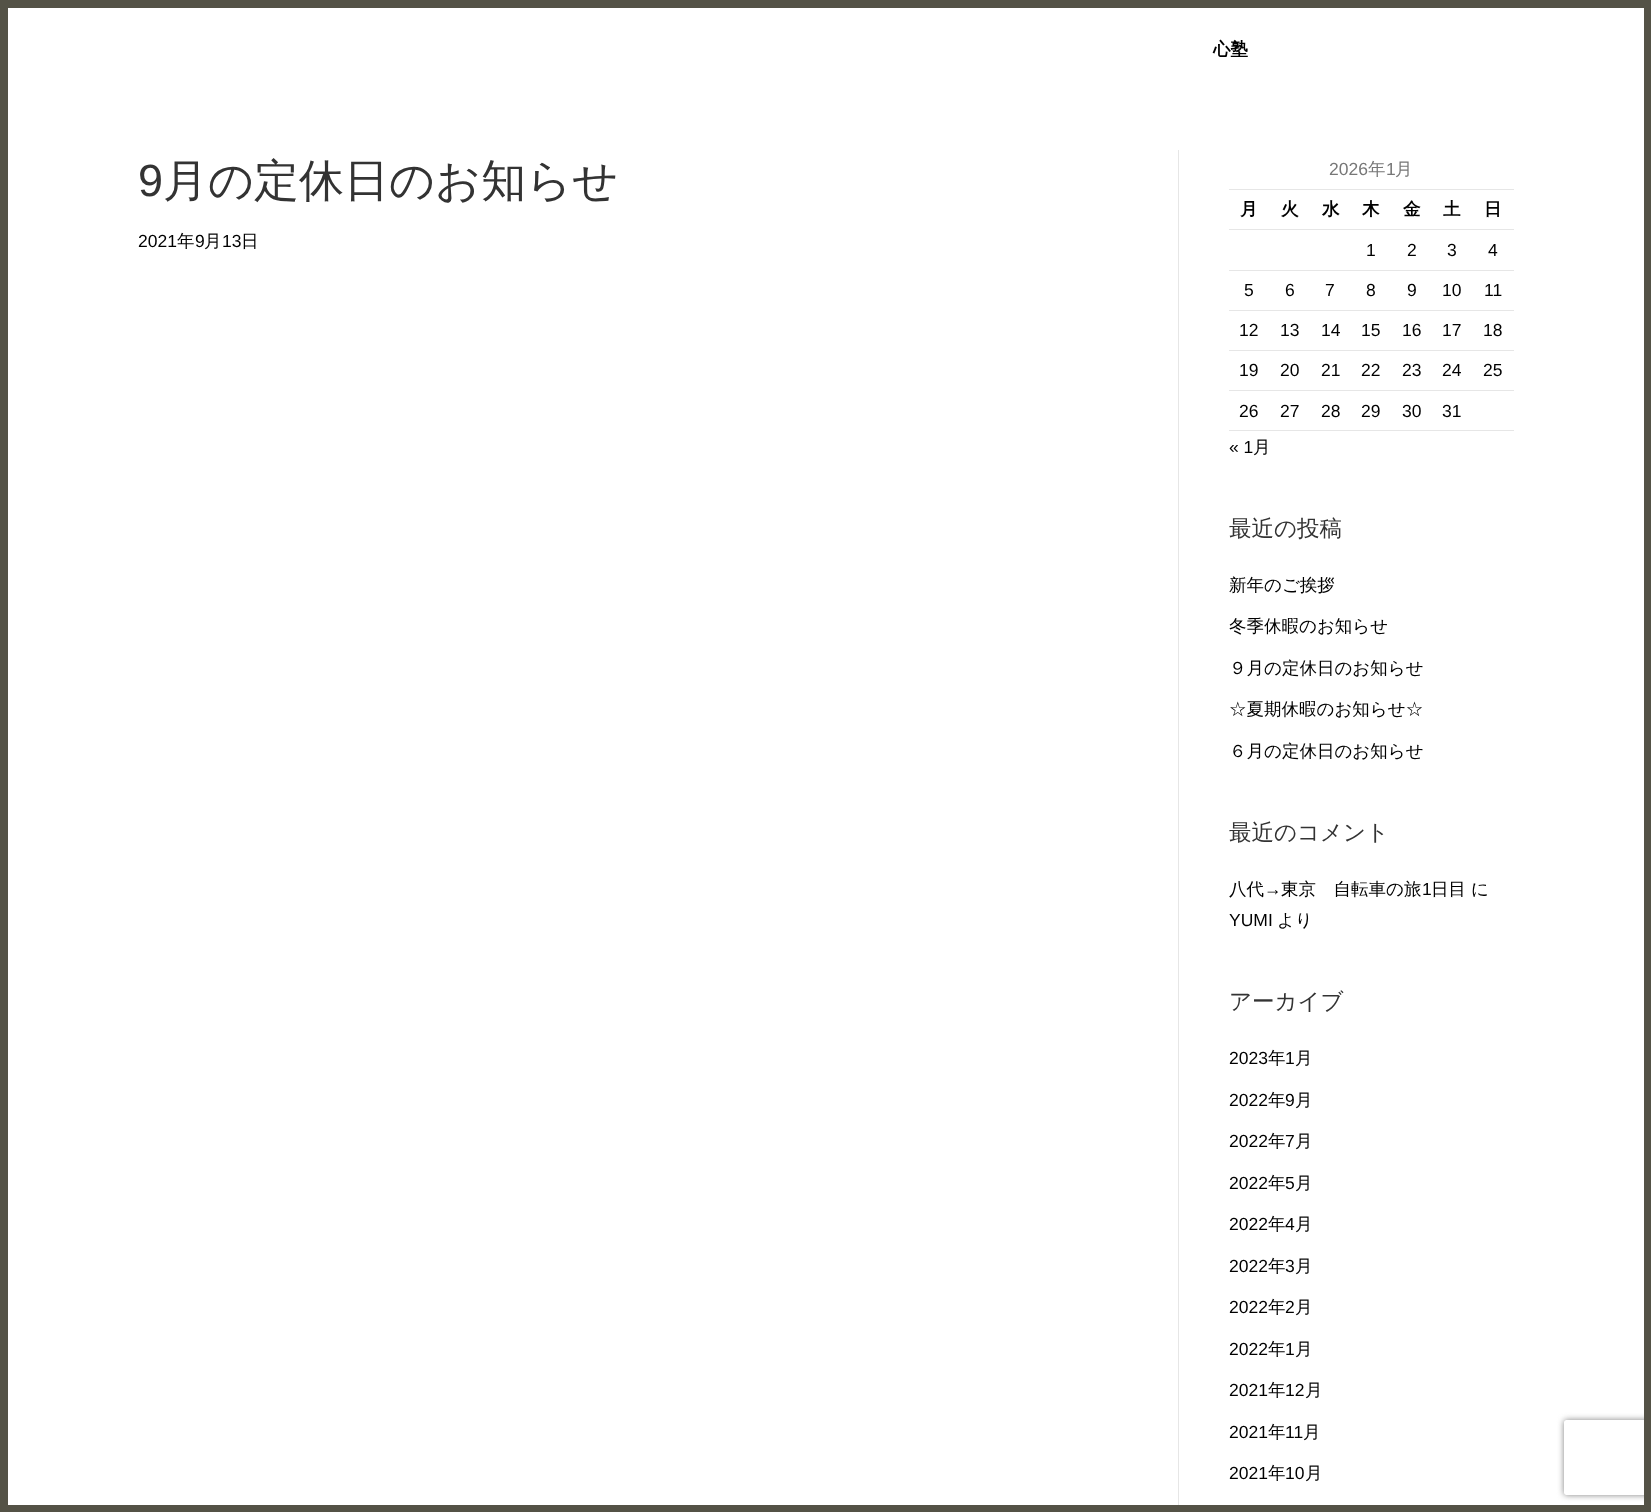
(async () => {
    const canvas = document.querySelector("canvas");
    canvas.width = 1651;
    canvas.height = 1512;
    const context = canvas.getContext("2d");
    context.miterLimit = 4;
    context.fontKerning = "normal";
    function write(s, x, y, font, color) {
        context.font = font;
        context.fillStyle = color;
        context.fillText(s, x, y);
    }
    function block(x, y, w, h, color) {
        context.fillStyle = color;
        context.fillRect(x, y, w, h);
    }

    block(0, 0, 1651, 1512, "rgb(255, 255, 255)");
    block(0, 0, 1651, 8, "rgb(84, 82, 70)");
    block(1178, 150, 1, 1362, "rgb(230, 230, 230)");
    block(0, 1505, 1651, 7, "rgb(84, 82, 70)");
    block(0, 0, 8, 1512, "rgb(84, 82, 70)");
    write("心塾", 1213, 55, "bold 17.5px WenQuanYi Zen Hei", "rgb(0, 0, 0)");
    write("9", 138, 196, "45px Liberation Sans", "rgb(51, 51, 51)");
    write("月の定休日のお知らせ", 163, 196, "500 45px WenQuanYi Zen Hei", "rgb(51, 51, 51)");
    write("2021", 138, 247, "17.5px Liberation Sans", "rgb(0, 0, 0)");
    write("年", 177, 247, "500 17.5px WenQuanYi Zen Hei", "rgb(0, 0, 0)");
    write("9", 195, 247, "17.5px Liberation Sans", "rgb(0, 0, 0)");
    write("月", 204, 247, "500 17.5px WenQuanYi Zen Hei", "rgb(0, 0, 0)");
    write("13", 222, 247, "17.5px Liberation Sans", "rgb(0, 0, 0)");
    write("日", 241, 247, "500 17.5px WenQuanYi Zen Hei", "rgb(0, 0, 0)");
    block(1229, 189, 285, 1, "rgb(230, 230, 230)");
    write("2026", 1329, 175, "17.5px Liberation Sans", "rgb(119, 119, 119)");
    write("年", 1368, 175, "500 17.5px WenQuanYi Zen Hei", "rgb(119, 119, 119)");
    write("1", 1386, 175, "17.5px Liberation Sans", "rgb(119, 119, 119)");
    write("月", 1395, 175, "500 17.5px WenQuanYi Zen Hei", "rgb(119, 119, 119)");
    write("月", 1240, 215, "bold 17.5px WenQuanYi Zen Hei", "rgb(0, 0, 0)");
    write("火", 1281, 215, "bold 17.5px WenQuanYi Zen Hei", "rgb(0, 0, 0)");
    write("水", 1322, 215, "bold 17.5px WenQuanYi Zen Hei", "rgb(0, 0, 0)");
    write("木", 1362, 215, "bold 17.5px WenQuanYi Zen Hei", "rgb(0, 0, 0)");
    write("金", 1403, 215, "bold 17.5px WenQuanYi Zen Hei", "rgb(0, 0, 0)");
    write("土", 1443, 215, "bold 17.5px WenQuanYi Zen Hei", "rgb(0, 0, 0)");
    block(1229, 229, 285, 1, "rgb(230, 230, 230)");
    write("日", 1484, 215, "bold 17.5px WenQuanYi Zen Hei", "rgb(0, 0, 0)");
    write("1", 1366, 256, "17.5px Liberation Sans", "rgb(0, 0, 0)");
    write("2", 1407, 256, "17.5px Liberation Sans", "rgb(0, 0, 0)");
    write("3", 1447, 256, "17.5px Liberation Sans", "rgb(0, 0, 0)");
    block(1229, 270, 285, 1, "rgb(230, 230, 230)");
    write("4", 1488, 256, "17.5px Liberation Sans", "rgb(0, 0, 0)");
    write("5", 1244, 296, "17.5px Liberation Sans", "rgb(0, 0, 0)");
    write("6", 1285, 296, "17.5px Liberation Sans", "rgb(0, 0, 0)");
    write("7", 1325, 296, "17.5px Liberation Sans", "rgb(0, 0, 0)");
    write("8", 1366, 296, "17.5px Liberation Sans", "rgb(0, 0, 0)");
    write("9", 1407, 296, "17.5px Liberation Sans", "rgb(0, 0, 0)");
    write("10", 1442, 296, "17.5px Liberation Sans", "rgb(0, 0, 0)");
    block(1229, 310, 285, 1, "rgb(230, 230, 230)");
    write("11", 1484, 296, "17.5px Liberation Sans", "rgb(0, 0, 0)");
    write("12", 1239, 336, "17.5px Liberation Sans", "rgb(0, 0, 0)");
    write("13", 1280, 336, "17.5px Liberation Sans", "rgb(0, 0, 0)");
    write("14", 1321, 336, "17.5px Liberation Sans", "rgb(0, 0, 0)");
    write("15", 1361, 336, "17.5px Liberation Sans", "rgb(0, 0, 0)");
    write("16", 1402, 336, "17.5px Liberation Sans", "rgb(0, 0, 0)");
    write("17", 1442, 336, "17.5px Liberation Sans", "rgb(0, 0, 0)");
    block(1229, 350, 285, 1, "rgb(230, 230, 230)");
    write("18", 1483, 336, "17.5px Liberation Sans", "rgb(0, 0, 0)");
    write("19", 1239, 376, "17.5px Liberation Sans", "rgb(0, 0, 0)");
    write("20", 1280, 376, "17.5px Liberation Sans", "rgb(0, 0, 0)");
    write("21", 1321, 376, "17.5px Liberation Sans", "rgb(0, 0, 0)");
    write("22", 1361, 376, "17.5px Liberation Sans", "rgb(0, 0, 0)");
    write("23", 1402, 376, "17.5px Liberation Sans", "rgb(0, 0, 0)");
    write("24", 1442, 376, "17.5px Liberation Sans", "rgb(0, 0, 0)");
    block(1229, 390, 285, 1, "rgb(230, 230, 230)");
    write("25", 1483, 376, "17.5px Liberation Sans", "rgb(0, 0, 0)");
    write("26", 1239, 417, "17.5px Liberation Sans", "rgb(0, 0, 0)");
    write("27", 1280, 417, "17.5px Liberation Sans", "rgb(0, 0, 0)");
    write("28", 1321, 417, "17.5px Liberation Sans", "rgb(0, 0, 0)");
    write("29", 1361, 417, "17.5px Liberation Sans", "rgb(0, 0, 0)");
    write("30", 1402, 417, "17.5px Liberation Sans", "rgb(0, 0, 0)");
    write("31", 1442, 417, "17.5px Liberation Sans", "rgb(0, 0, 0)");
    block(1229, 430, 285, 1, "rgb(230, 230, 230)");
    write("« 1", 1229, 453, "17.5px Liberation Sans", "rgb(0, 0, 0)");
    write("月", 1253, 453, "500 17.5px WenQuanYi Zen Hei", "rgb(0, 0, 0)");
    write("最近の投稿", 1229, 536, "500 22.5px WenQuanYi Zen Hei", "rgb(51, 51, 51)");
    write("新年のご挨拶", 1229, 591, "500 17.5px WenQuanYi Zen Hei", "rgb(0, 0, 0)");
    write("冬季休暇のお知らせ", 1229, 632, "500 17.5px WenQuanYi Zen Hei", "rgb(0, 0, 0)");
    write("９月の定休日のお知らせ", 1229, 674, "500 17.5px WenQuanYi Zen Hei", "rgb(0, 0, 0)");
    write("☆夏期休暇のお知らせ☆", 1229, 715, "500 17.5px WenQuanYi Zen Hei", "rgb(0, 0, 0)");
    write("６月の定休日のお知らせ", 1229, 757, "500 17.5px WenQuanYi Zen Hei", "rgb(0, 0, 0)");
    write("最近のコメント", 1229, 840, "500 22.5px WenQuanYi Zen Hei", "rgb(51, 51, 51)");
    write("八代", 1229, 895, "500 17.5px WenQuanYi Zen Hei", "rgb(0, 0, 0)");
    write("→", 1264, 895, "17.5px Liberation Sans", "rgb(0, 0, 0)");
    write("東京　自転車の旅", 1281, 895, "500 17.5px WenQuanYi Zen Hei", "rgb(0, 0, 0)");
    write("1", 1422, 895, "17.5px Liberation Sans", "rgb(0, 0, 0)");
    write("日目", 1431, 895, "500 17.5px WenQuanYi Zen Hei", "rgb(0, 0, 0)");
    write("に", 1471, 895, "500 17.5px WenQuanYi Zen Hei", "rgb(0, 0, 0)");
    write("YUMI", 1229, 926, "17.5px Liberation Sans", "rgb(0, 0, 0)");
    write("より", 1277, 926, "500 17.5px WenQuanYi Zen Hei", "rgb(0, 0, 0)");
    write("アーカイブ", 1229, 1009, "500 22.5px WenQuanYi Zen Hei", "rgb(51, 51, 51)");
    write("2023", 1229, 1064, "17.5px Liberation Sans", "rgb(0, 0, 0)");
    write("年", 1268, 1064, "500 17.5px WenQuanYi Zen Hei", "rgb(0, 0, 0)");
    write("1", 1285, 1064, "17.5px Liberation Sans", "rgb(0, 0, 0)");
    write("月", 1295, 1064, "500 17.5px WenQuanYi Zen Hei", "rgb(0, 0, 0)");
    write("2022", 1229, 1106, "17.5px Liberation Sans", "rgb(0, 0, 0)");
    write("年", 1268, 1106, "500 17.5px WenQuanYi Zen Hei", "rgb(0, 0, 0)");
    write("9", 1285, 1106, "17.5px Liberation Sans", "rgb(0, 0, 0)");
    write("月", 1295, 1106, "500 17.5px WenQuanYi Zen Hei", "rgb(0, 0, 0)");
    write("2022", 1229, 1147, "17.5px Liberation Sans", "rgb(0, 0, 0)");
    write("年", 1268, 1147, "500 17.5px WenQuanYi Zen Hei", "rgb(0, 0, 0)");
    write("7", 1285, 1147, "17.5px Liberation Sans", "rgb(0, 0, 0)");
    write("月", 1295, 1147, "500 17.5px WenQuanYi Zen Hei", "rgb(0, 0, 0)");
    write("2022", 1229, 1189, "17.5px Liberation Sans", "rgb(0, 0, 0)");
    write("年", 1268, 1189, "500 17.5px WenQuanYi Zen Hei", "rgb(0, 0, 0)");
    write("5", 1285, 1189, "17.5px Liberation Sans", "rgb(0, 0, 0)");
    write("月", 1295, 1189, "500 17.5px WenQuanYi Zen Hei", "rgb(0, 0, 0)");
    write("2022", 1229, 1230, "17.5px Liberation Sans", "rgb(0, 0, 0)");
    write("年", 1268, 1230, "500 17.5px WenQuanYi Zen Hei", "rgb(0, 0, 0)");
    write("4", 1285, 1230, "17.5px Liberation Sans", "rgb(0, 0, 0)");
    write("月", 1295, 1230, "500 17.5px WenQuanYi Zen Hei", "rgb(0, 0, 0)");
    write("2022", 1229, 1272, "17.5px Liberation Sans", "rgb(0, 0, 0)");
    write("年", 1268, 1272, "500 17.5px WenQuanYi Zen Hei", "rgb(0, 0, 0)");
    write("3", 1285, 1272, "17.5px Liberation Sans", "rgb(0, 0, 0)");
    write("月", 1295, 1272, "500 17.5px WenQuanYi Zen Hei", "rgb(0, 0, 0)");
    write("2022", 1229, 1313, "17.5px Liberation Sans", "rgb(0, 0, 0)");
    write("年", 1268, 1313, "500 17.5px WenQuanYi Zen Hei", "rgb(0, 0, 0)");
    write("2", 1285, 1313, "17.5px Liberation Sans", "rgb(0, 0, 0)");
    write("月", 1295, 1313, "500 17.5px WenQuanYi Zen Hei", "rgb(0, 0, 0)");
    write("2022", 1229, 1355, "17.5px Liberation Sans", "rgb(0, 0, 0)");
    write("年", 1268, 1355, "500 17.5px WenQuanYi Zen Hei", "rgb(0, 0, 0)");
    write("1", 1285, 1355, "17.5px Liberation Sans", "rgb(0, 0, 0)");
    write("月", 1295, 1355, "500 17.5px WenQuanYi Zen Hei", "rgb(0, 0, 0)");
    write("2021", 1229, 1396, "17.5px Liberation Sans", "rgb(0, 0, 0)");
    write("年", 1268, 1396, "500 17.5px WenQuanYi Zen Hei", "rgb(0, 0, 0)");
    write("12", 1285, 1396, "17.5px Liberation Sans", "rgb(0, 0, 0)");
    write("月", 1305, 1396, "500 17.5px WenQuanYi Zen Hei", "rgb(0, 0, 0)");
    write("2021", 1229, 1438, "17.5px Liberation Sans", "rgb(0, 0, 0)");
    write("年", 1268, 1438, "500 17.5px WenQuanYi Zen Hei", "rgb(0, 0, 0)");
    write("11", 1285, 1438, "17.5px Liberation Sans", "rgb(0, 0, 0)");
    write("月", 1303, 1438, "500 17.5px WenQuanYi Zen Hei", "rgb(0, 0, 0)");
    write("2021", 1229, 1479, "17.5px Liberation Sans", "rgb(0, 0, 0)");
    write("年", 1268, 1479, "500 17.5px WenQuanYi Zen Hei", "rgb(0, 0, 0)");
    write("10", 1285, 1479, "17.5px Liberation Sans", "rgb(0, 0, 0)");
    write("月", 1305, 1479, "500 17.5px WenQuanYi Zen Hei", "rgb(0, 0, 0)");
    context.save();
    context.beginPath();
    context.moveTo(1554, 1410);
    context.lineTo(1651, 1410);
    context.lineTo(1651, 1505);
    context.lineTo(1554, 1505);
    context.closePath();
    context.moveTo(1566.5, 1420);
    context.lineTo(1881.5, 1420);
    context.bezierCurveTo(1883, 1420, 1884, 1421, 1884, 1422.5);
    context.lineTo(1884, 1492.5);
    context.bezierCurveTo(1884, 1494, 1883, 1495, 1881.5, 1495);
    context.lineTo(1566.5, 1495);
    context.bezierCurveTo(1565, 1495, 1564, 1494, 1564, 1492.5);
    context.lineTo(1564, 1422.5);
    context.bezierCurveTo(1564, 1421, 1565, 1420, 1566.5, 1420);
    context.closePath();
    context.clip("evenodd");
    context.fillStyle = "rgb(128, 128, 128)";
    context.filter = "blur(3px)";
    context.beginPath();
    context.roundRect(1564, 1420, 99, 75, 2.5);
    context.fill();
    context.filter = "none";
    context.restore();
    block(1644, 0, 7, 1512, "rgb(84, 82, 70)");
})();
